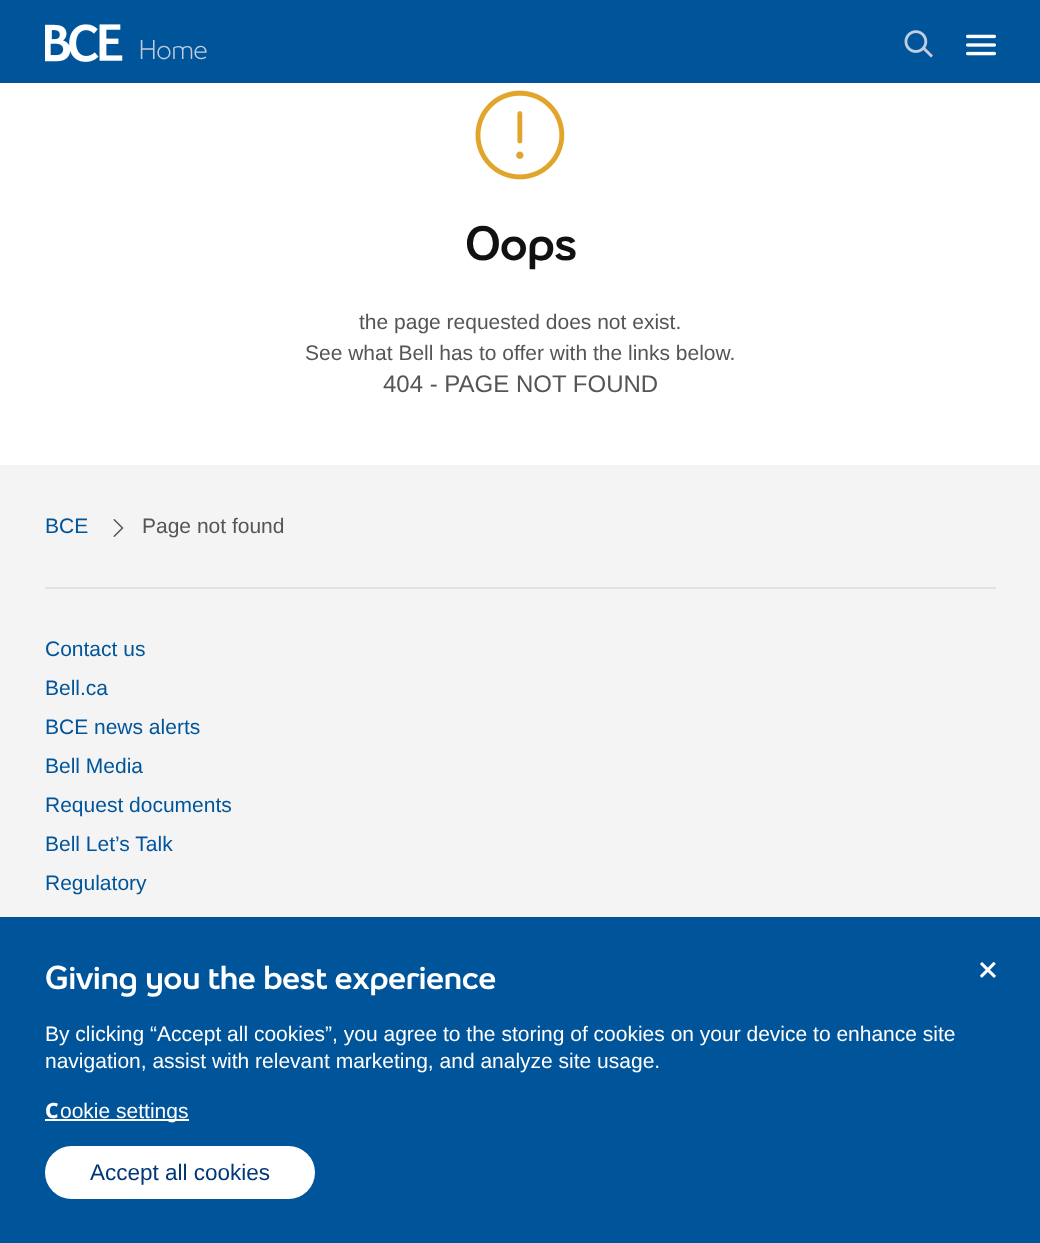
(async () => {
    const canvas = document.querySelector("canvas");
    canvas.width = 1040;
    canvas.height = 1243;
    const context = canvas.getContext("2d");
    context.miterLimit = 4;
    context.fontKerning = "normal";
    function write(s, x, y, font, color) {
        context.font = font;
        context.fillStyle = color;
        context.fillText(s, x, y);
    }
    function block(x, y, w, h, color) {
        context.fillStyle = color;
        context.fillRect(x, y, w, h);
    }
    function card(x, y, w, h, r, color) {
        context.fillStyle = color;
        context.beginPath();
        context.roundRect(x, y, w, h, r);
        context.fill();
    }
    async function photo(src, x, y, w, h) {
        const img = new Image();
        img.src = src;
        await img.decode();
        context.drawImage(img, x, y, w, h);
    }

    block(0, 0, 1040, 1243, "rgb(0, 84, 154)");
    await photo("media/1.png", 45, 24, 78, 38);
    context.letterSpacing = "-1.5px";
    write("Home", 138, 59, "500 27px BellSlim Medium", "rgb(194, 206, 223)");
    await photo("media/2.png", 904, 30, 29, 28);
    await photo("media/3.png", 966, 34, 30, 22);
    block(0, 83, 1040, 382, "rgb(255, 255, 255)");
    await photo("media/4.png", 475, 90, 90, 90);
    context.letterSpacing = "-1px";
    write("Oops", 465, 260, "900 48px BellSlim", "rgb(17, 17, 17)");
    context.letterSpacing = "0px";
    write("the page requested does not exist.", 359, 329, "21px Liberation Sans", "rgb(85, 85, 85)");
    write("See what Bell has to offer with the links below.", 305, 360, "21px Liberation Sans", "rgb(85, 85, 85)");
    write("404 - PAGE NOT FOUND", 383, 392, "24px Liberation Sans", "rgb(85, 85, 85)");
    block(0, 465, 1040, 452, "rgb(244, 244, 244)");
    write("BCE", 45, 533, "21px Liberation Sans", "rgb(0, 84, 154)");
    await photo("media/5.png", 113, 519, 11, 18);
    write("Page not found", 142, 533, "21px Liberation Sans", "rgb(85, 85, 85)");
    block(45, 587, 951, 2, "rgb(225, 225, 225)");
    write("Contact us", 45, 656, "21px Liberation Sans", "rgb(0, 84, 154)");
    write("Bell.ca", 45, 695, "21px Liberation Sans", "rgb(0, 84, 154)");
    write("BCE news alerts", 45, 734, "21px Liberation Sans", "rgb(0, 84, 154)");
    write("Bell Media", 45, 773, "21px Liberation Sans", "rgb(0, 84, 154)");
    write("Request documents", 45, 812, "21px Liberation Sans", "rgb(0, 84, 154)");
    write("Bell Let’s Talk", 45, 851, "21px Liberation Sans", "rgb(0, 84, 154)");
    write("Regulatory", 45, 890, "21px Liberation Sans", "rgb(0, 84, 154)");
    context.letterSpacing = "-0.6px";
    write("Giving you the best experience", 45, 989, "900 33px BellSlim", "rgb(255, 255, 255)");
    context.letterSpacing = "0px";
    write("By clicking “Accept all cookies”, you agree to the storing of cookies on your device to enhance site", 45, 1041, "21px Liberation Sans", "rgb(255, 255, 255)");
    write("navigation, assist with relevant marketing, and analyze site usage.", 45, 1068, "21px Liberation Sans", "rgb(255, 255, 255)");
    write("C", 45, 1118, "800 21px Noto Sans", "rgb(255, 255, 255)");
    block(45, 1119, 144, 2, "rgb(255, 255, 255)");
    write("ookie settings", 60, 1118, "21px Liberation Sans", "rgb(255, 255, 255)");
    card(45, 1146, 270, 53, 26.5, "rgb(255, 255, 255)");
    write("Accept all cookies", 90, 1180, "22.5px Liberation Sans", "rgb(0, 55, 120)");
    await photo("media/6.png", 980, 962, 16, 16);
})();
